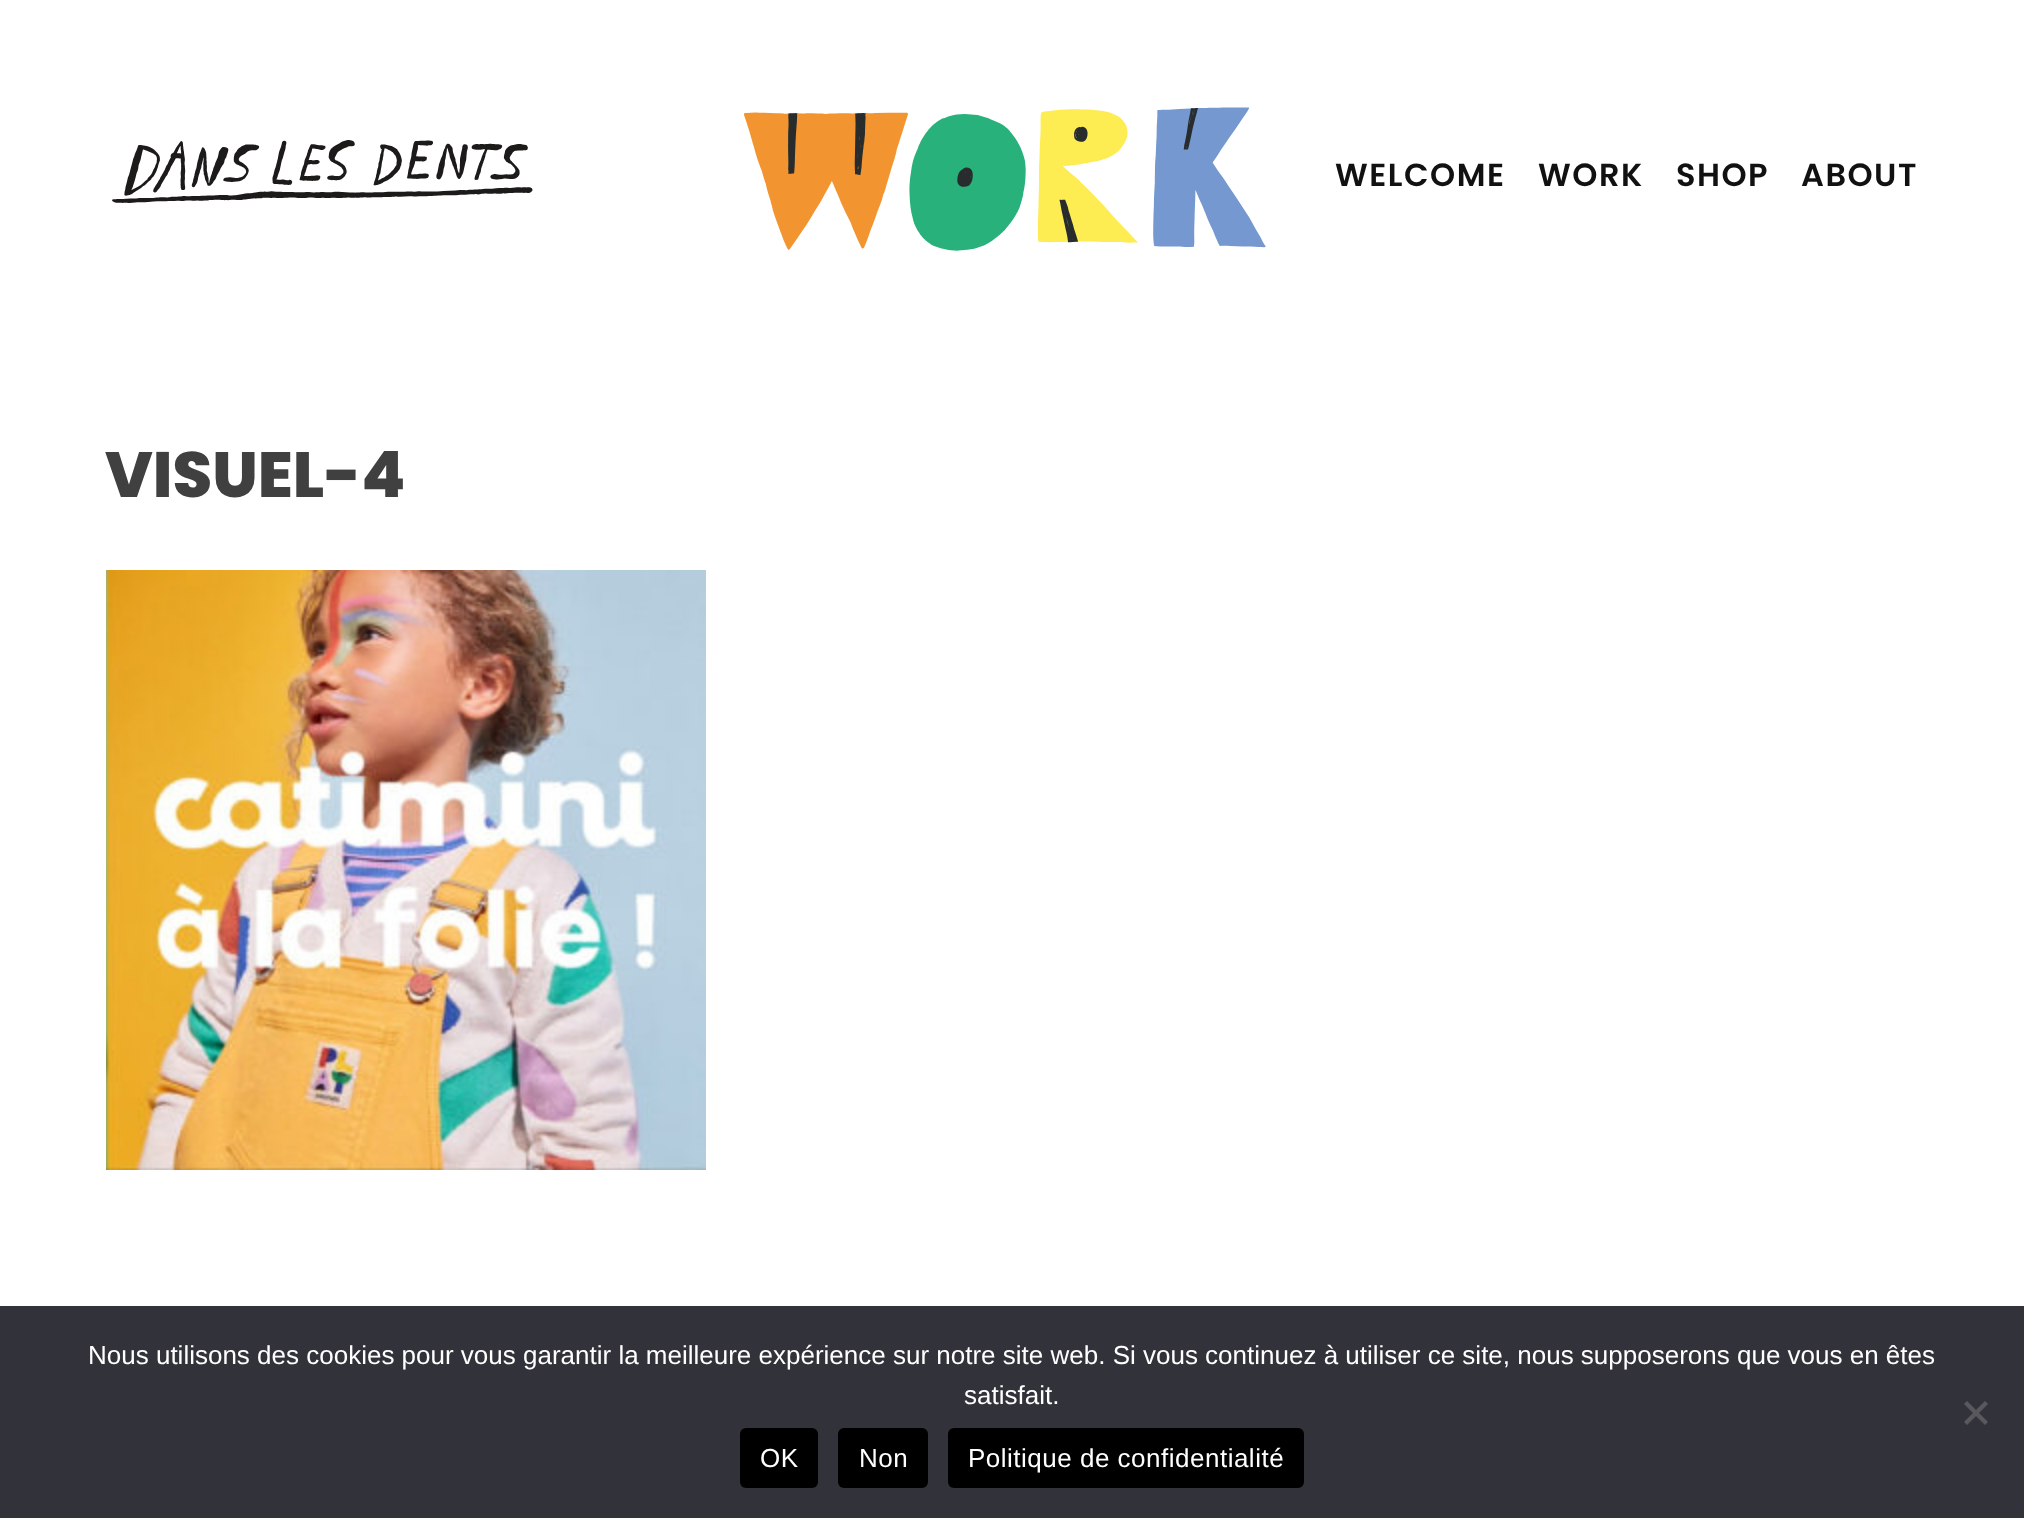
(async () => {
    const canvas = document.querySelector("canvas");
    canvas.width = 2024;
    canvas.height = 1518;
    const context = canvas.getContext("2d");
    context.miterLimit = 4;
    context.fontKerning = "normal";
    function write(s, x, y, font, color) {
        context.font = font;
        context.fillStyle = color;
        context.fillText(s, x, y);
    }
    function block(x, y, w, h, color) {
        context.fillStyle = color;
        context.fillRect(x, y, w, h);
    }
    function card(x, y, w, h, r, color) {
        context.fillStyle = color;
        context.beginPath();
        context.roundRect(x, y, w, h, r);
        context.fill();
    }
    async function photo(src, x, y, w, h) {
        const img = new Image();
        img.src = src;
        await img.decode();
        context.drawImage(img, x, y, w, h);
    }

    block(0, 0, 2024, 1518, "rgb(255, 255, 255)");
    await photo("media/1.png", 112, 140, 421, 63);
    await photo("media/2.png", 743, 107, 523, 144);
    context.letterSpacing = "1.5px";
    write("WELCOME", 1335, 186, "600 32px Poppins", "rgb(17, 17, 17)");
    write("WORK", 1538, 186, "600 32px Poppins", "rgb(17, 17, 17)");
    write("SHOP", 1676, 186, "600 32px Poppins", "rgb(17, 17, 17)");
    write("ABOUT", 1801, 186, "600 32px Poppins", "rgb(17, 17, 17)");
    context.letterSpacing = "0px";
    write("VISUEL-4", 105, 497, "800 64px Poppins", "rgb(64, 64, 64)");
    await photo("media/3.png", 106, 570, 600, 600);
    block(0, 1306, 2024, 212, "rgb(50, 50, 58)");
    write("Nous utilisons des cookies pour vous garantir la meilleure expérience sur notre site web. Si vous continuez à utiliser ce site, nous supposerons que vous en êtes", 88, 1364, "26px Liberation Sans", "rgb(255, 255, 255)");
    write("satisfait.", 964, 1404, "26px Liberation Sans", "rgb(255, 255, 255)");
    context.fillStyle = "rgb(89, 89, 93)";
    context.beginPath();
    context.moveTo(1985, 1401);
    context.lineTo(1988, 1404);
    context.lineTo(1967, 1425);
    context.lineTo(1964, 1422);
    context.closePath();
    context.fill();
    context.beginPath();
    context.moveTo(1964, 1404);
    context.lineTo(1967, 1401);
    context.lineTo(1988, 1422);
    context.lineTo(1985, 1425);
    context.closePath();
    context.fill();
    card(740, 1428, 78, 60, 6, "rgb(0, 0, 0)");
    context.letterSpacing = "0.5px";
    write("OK", 760, 1467, "26px Liberation Sans", "rgb(255, 255, 255)");
    card(838, 1428, 90, 60, 6, "rgb(0, 0, 0)");
    write("Non", 859, 1467, "26px Liberation Sans", "rgb(255, 255, 255)");
    card(948, 1428, 356, 60, 6, "rgb(0, 0, 0)");
    write("Politique de confidentialité", 968, 1467, "26px Liberation Sans", "rgb(255, 255, 255)");
})();
